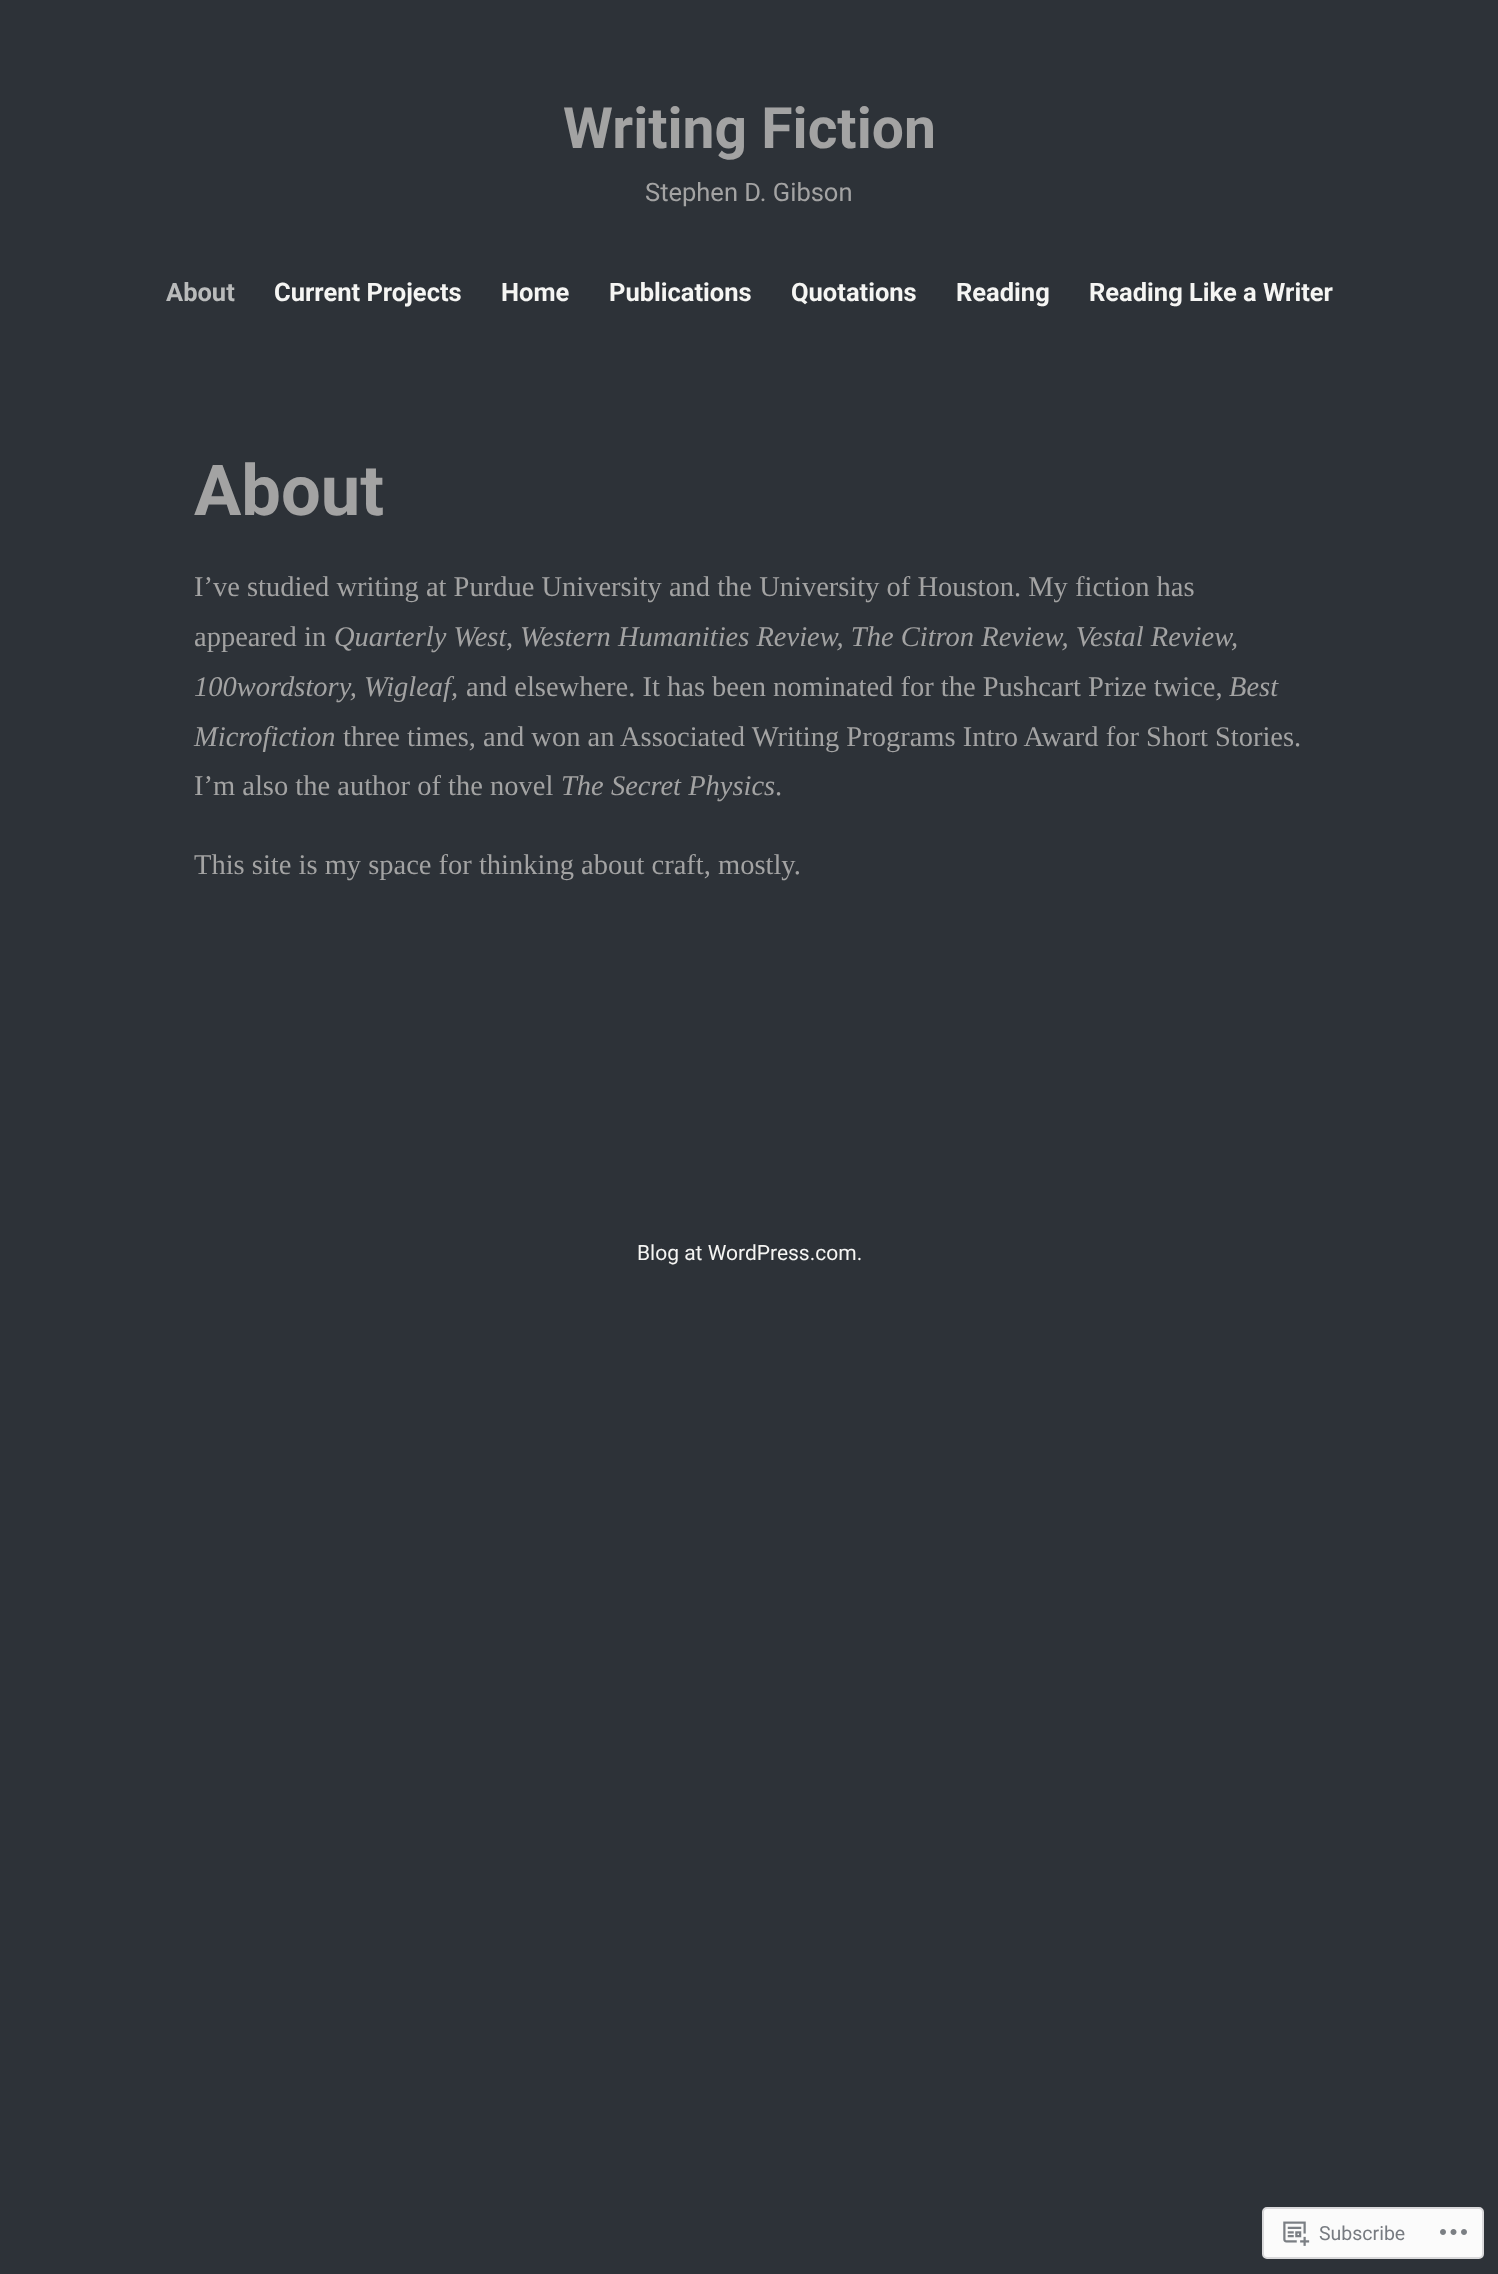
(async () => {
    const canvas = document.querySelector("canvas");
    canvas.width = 1498;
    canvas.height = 2274;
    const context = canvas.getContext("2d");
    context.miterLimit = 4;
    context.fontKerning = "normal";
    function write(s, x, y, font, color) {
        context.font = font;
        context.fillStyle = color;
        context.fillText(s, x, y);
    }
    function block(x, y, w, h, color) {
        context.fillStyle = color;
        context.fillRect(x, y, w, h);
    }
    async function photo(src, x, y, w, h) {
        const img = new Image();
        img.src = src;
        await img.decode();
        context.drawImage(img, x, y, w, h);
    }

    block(0, 0, 1498, 2274, "rgb(45, 50, 56)");
    write("Writing Fiction", 563, 148, "bold 57px Roboto", "rgb(163, 163, 163)");
    write("Stephen D. Gibson", 645, 201, "25.5px Roboto", "rgb(163, 163, 163)");
    write("About", 166, 301, "bold 25.5px Roboto", "rgb(185, 187, 187)");
    write("Current Projects", 274, 301, "bold 25.5px Roboto", "rgb(245, 245, 243)");
    write("Home", 501, 301, "bold 25.5px Roboto", "rgb(245, 245, 243)");
    write("Publications", 609, 301, "bold 25.5px Roboto", "rgb(245, 245, 243)");
    write("Quotations", 791, 301, "bold 25.5px Roboto", "rgb(245, 245, 243)");
    write("Reading", 956, 301, "bold 25.5px Roboto", "rgb(245, 245, 243)");
    write("Reading Like a Writer", 1089, 301, "bold 25.5px Roboto", "rgb(245, 245, 243)");
    write("About", 194, 515, "bold 70.5px Roboto", "rgb(163, 163, 163)");
    write("I’ve studied writing at Purdue University and the University of Houston. My fiction has", 194, 596, "28.5px Liberation Serif", "rgb(163, 163, 163)");
    write("appeared in", 194, 646, "28.5px Liberation Serif", "rgb(163, 163, 163)");
    write("Quarterly West", 334, 646, "italic 28.5px Liberation Serif", "rgb(163, 163, 163)");
    write(",", 506, 646, "28.5px Liberation Serif", "rgb(163, 163, 163)");
    write("Western Humanities Review, The Citron Review, Vestal Review,", 520, 646, "italic 28.5px Liberation Serif", "rgb(163, 163, 163)");
    write("100wordstory, Wigleaf,", 194, 696, "italic 28.5px Liberation Serif", "rgb(163, 163, 163)");
    write("and elsewhere. It has been nominated for the Pushcart Prize twice,", 466, 696, "28.5px Liberation Serif", "rgb(163, 163, 163)");
    write("Best", 1229, 696, "italic 28.5px Liberation Serif", "rgb(163, 163, 163)");
    write("Microfiction", 194, 746, "italic 28.5px Liberation Serif", "rgb(163, 163, 163)");
    write("three times, and won an Associated Writing Programs Intro Award for Short Stories.", 343, 746, "28.5px Liberation Serif", "rgb(163, 163, 163)");
    write("I’m also the author of the novel", 194, 795, "28.5px Liberation Serif", "rgb(163, 163, 163)");
    write("The Secret Physics", 561, 795, "italic 28.5px Liberation Serif", "rgb(163, 163, 163)");
    write(".", 775, 795, "28.5px Liberation Serif", "rgb(163, 163, 163)");
    write("This site is my space for thinking about craft, mostly.", 194, 874, "28.5px Liberation Serif", "rgb(163, 163, 163)");
    write("Blog at WordPress.com.", 637, 1260, "21px Roboto", "rgb(245, 245, 243)");
    context.fillStyle = "rgb(251, 251, 251)";
    context.beginPath();
    context.roundRect(1263, 2208, 220, 50, 4);
    context.fill();
    context.strokeStyle = "rgb(217, 217, 219)";
    context.lineWidth = 2;
    context.stroke();
    await photo("media/1.png", 1283, 2221, 27, 25);
    write("Subscribe", 1319, 2240, "19.5px Roboto", "rgb(119, 123, 129)");
    await photo("media/2.png", 1440, 2229, 27, 6);
})();
